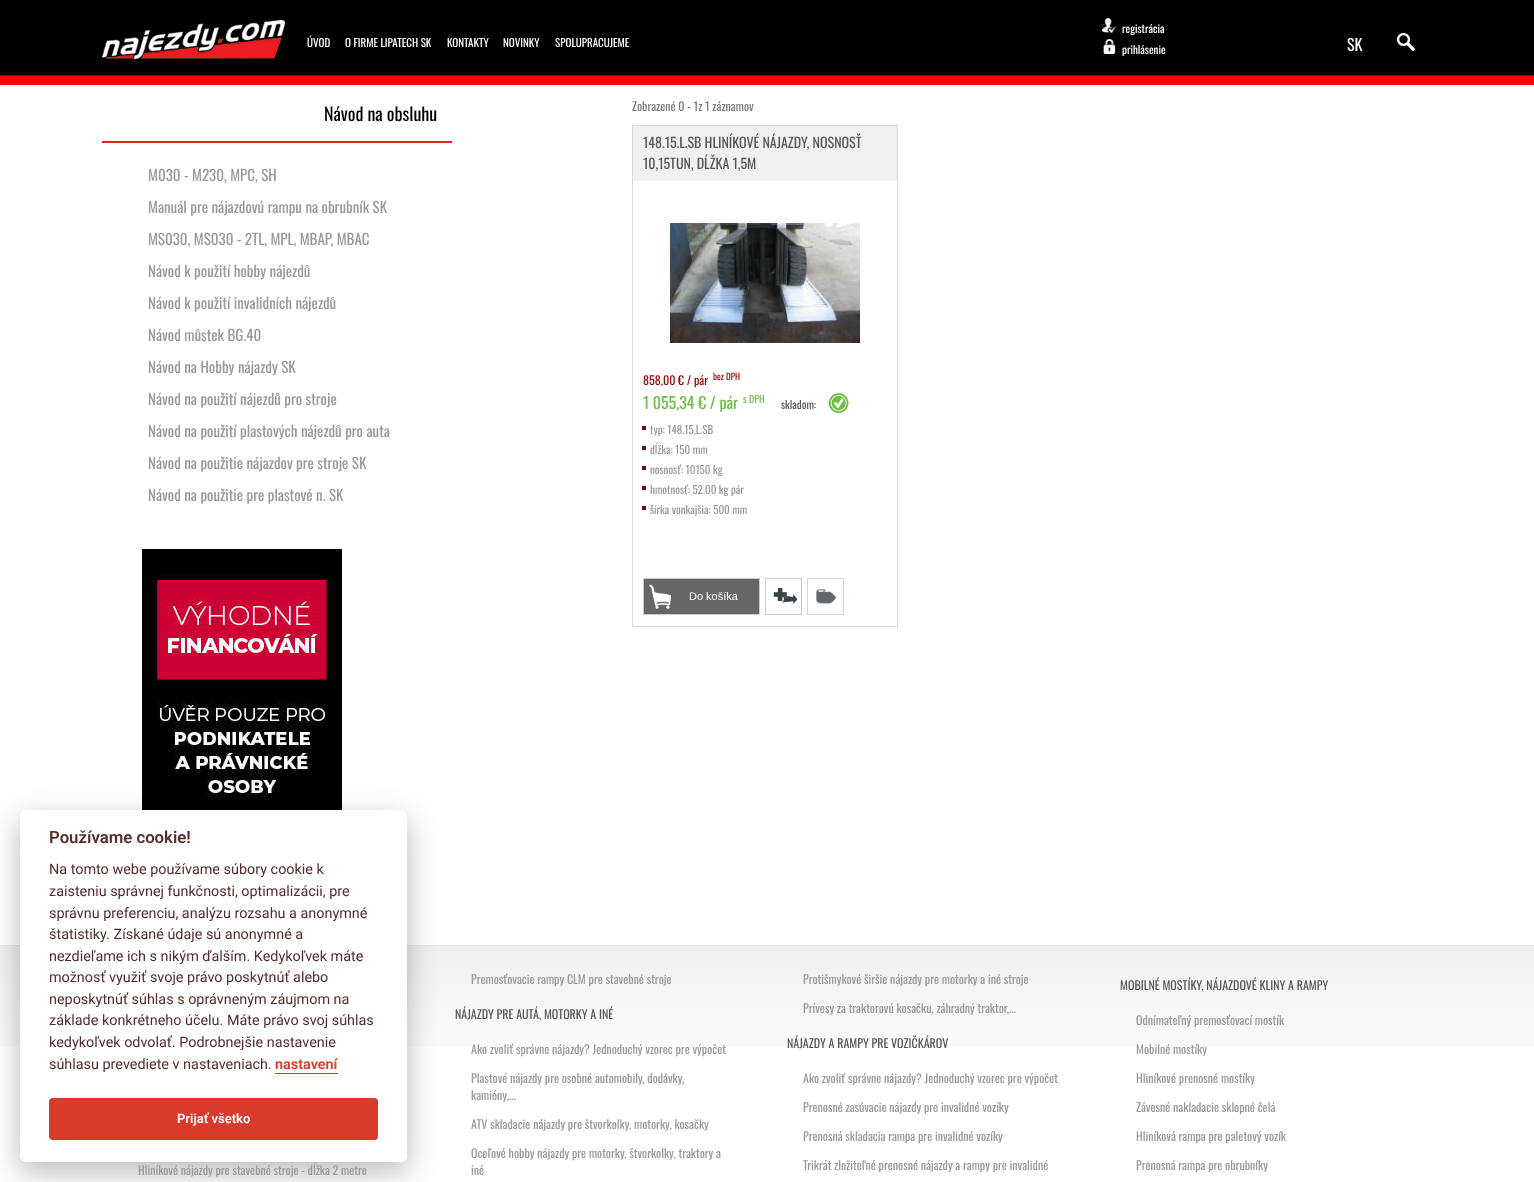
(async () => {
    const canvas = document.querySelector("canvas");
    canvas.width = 1534;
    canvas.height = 1182;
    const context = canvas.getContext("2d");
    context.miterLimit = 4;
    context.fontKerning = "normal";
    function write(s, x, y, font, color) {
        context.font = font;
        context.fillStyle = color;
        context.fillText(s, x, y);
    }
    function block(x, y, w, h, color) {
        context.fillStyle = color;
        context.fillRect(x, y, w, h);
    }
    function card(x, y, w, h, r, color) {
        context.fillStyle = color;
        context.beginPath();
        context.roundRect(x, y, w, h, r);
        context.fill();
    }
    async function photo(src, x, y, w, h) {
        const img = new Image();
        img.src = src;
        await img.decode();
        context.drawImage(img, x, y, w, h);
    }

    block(0, 0, 1534, 1182, "rgb(255, 255, 255)");
    await photo("media/1.png", 0, 0, 1534, 85);
    await photo("media/2.png", 102, 20, 183, 39);
    write("ÚVOD", 307, 47, "11px Oswald", "rgb(255, 255, 255)");
    write("O FIRME LIPATECH SK", 345, 47, "11px Oswald", "rgb(255, 255, 255)");
    write("KONTAKTY", 447, 47, "11px Oswald", "rgb(255, 255, 255)");
    write("NOVINKY", 503, 47, "11px Oswald", "rgb(255, 255, 255)");
    write("SPOLUPRACUJEME", 555, 47, "11px Oswald", "rgb(255, 255, 255)");
    await photo("media/3.png", 1102, 18, 15, 15);
    write("registrácia", 1122, 33, "11px Oswald", "rgb(255, 255, 255)");
    await photo("media/4.png", 1103, 39, 13, 15);
    write("prihlásenie", 1122, 54, "11px Oswald", "rgb(255, 255, 255)");
    write("SK", 1347, 51, "16px Oswald", "rgb(255, 255, 255)");
    await photo("media/5.png", 1397, 33, 18, 18);
    block(102, 141, 350, 2, "rgb(237, 28, 36)");
    write("Návod na obsluhu", 324, 121, "18px Oswald", "rgb(0, 0, 0)");
    write("M030 - M230, MPC, SH", 148, 181, "15px Oswald", "rgb(153, 153, 153)");
    write("Manuál pre nájazdovú rampu na obrubník SK", 148, 213, "15px Oswald", "rgb(153, 153, 153)");
    write("MS030, MS030 - 2TL, MPL, MBAP, MBAC", 148, 245, "15px Oswald", "rgb(153, 153, 153)");
    write("Návod k použití hobby nájezdů", 148, 277, "15px Oswald", "rgb(153, 153, 153)");
    write("Návod k použití invalidních nájezdů", 148, 309, "15px Oswald", "rgb(153, 153, 153)");
    write("Návod můstek BG.40", 148, 341, "15px Oswald", "rgb(153, 153, 153)");
    write("Návod na Hobby nájazdy SK", 148, 373, "15px Oswald", "rgb(153, 153, 153)");
    write("Návod na použití nájezdů pro stroje", 148, 405, "15px Oswald", "rgb(153, 153, 153)");
    write("Návod na použití plastových nájezdů pro auta", 148, 437, "15px Oswald", "rgb(153, 153, 153)");
    write("Návod na použitie nájazdov pre stroje SK", 148, 469, "15px Oswald", "rgb(153, 153, 153)");
    write("Návod na použitie pre plastové n. SK", 148, 501, "15px Oswald", "rgb(153, 153, 153)");
    await photo("media/6.png", 142, 549, 200, 261);
    write("Zobrazené 0 - 1z 1 záznamov", 632, 111, "12px Oswald", "rgb(124, 124, 124)");
    context.strokeStyle = "rgb(218, 218, 218)";
    context.strokeRect(632.5, 125.5, 265, 501);
    block(633, 126, 264, 55, "rgb(240, 240, 240)");
    write("148.15.L.SB HLINÍKOVÉ NÁJAZDY, NOSNOSŤ", 643, 148, "14px Oswald", "rgb(86, 86, 86)");
    write("10,15TUN, DĹŽKA 1,5M", 643, 169, "14px Oswald", "rgb(86, 86, 86)");
    await photo("media/7.png", 670, 223, 190, 120);
    write("858,00 € / pár", 643, 385, "12px Oswald", "rgb(153, 0, 0)");
    write("bez DPH", 713, 380, "9px Oswald", "rgb(153, 0, 0)");
    write("1 055,34 € / pár", 643, 409, "16px Oswald", "rgb(109, 190, 69)");
    write("s DPH", 743, 403, "10px Oswald", "rgb(109, 190, 69)");
    write("skladom:", 781, 409, "11px Oswald", "rgb(86, 86, 86)");
    await photo("media/8.png", 828, 393, 21, 21);
    block(642, 426, 4, 4, "rgb(114, 16, 17)");
    write("typ: 148.15.L.SB", 650, 434, "11px Oswald", "rgb(153, 153, 153)");
    block(642, 446, 4, 4, "rgb(114, 16, 17)");
    write("dĺžka: 150 mm", 650, 454, "11px Oswald", "rgb(153, 153, 153)");
    block(642, 466, 4, 4, "rgb(114, 16, 17)");
    write("nosnosť: 10150 kg", 650, 474, "11px Oswald", "rgb(153, 153, 153)");
    block(642, 486, 4, 4, "rgb(114, 16, 17)");
    write("hmotnosť: 52.00 kg pár", 650, 494, "11px Oswald", "rgb(153, 153, 153)");
    block(642, 506, 4, 4, "rgb(114, 16, 17)");
    write("šírka vonkajšia: 500 mm", 650, 514, "11px Oswald", "rgb(153, 153, 153)");
    context.fillStyle = "rgb(102, 102, 102)";
    context.beginPath();
    context.rect(643.5, 578.5, 116, 36);
    context.fill();
    context.strokeStyle = "rgb(204, 204, 204)";
    context.stroke();
    await photo("media/9.png", 649, 584, 22, 25);
    write("Do košíka", 689, 600, "11px Liberation Sans", "rgb(255, 255, 255)");
    context.strokeRect(765.5, 578.5, 36, 36);
    await photo("media/10.png", 773, 588, 25, 16);
    await photo("media/11.png", 816, 589, 20, 15);
    context.strokeStyle = "rgb(214, 214, 214)";
    context.strokeRect(807.5, 578.5, 36, 36);
    await photo("media/12.png", 0, 945, 1534, 102);
    context.fillStyle = "rgba(2, 2, 3, 0.28)";
    context.filter = "blur(15px)";
    context.beginPath();
    context.roundRect(20, 820, 387, 352, 6);
    context.fill();
    context.filter = "none";
    card(20, 810, 387, 352, 6, "rgb(255, 255, 255)");
    write("Používame cookie!", 49, 843, "600 16.75px Roboto", "rgb(86, 45, 45)");
    write("Na tomto webe používame súbory cookie k", 49, 874, "14.4px Roboto", "rgb(86, 45, 45)");
    write("zaisteniu správnej funkčnosti, optimalizácii, pre", 49, 896, "14.4px Roboto", "rgb(86, 45, 45)");
    write("správnu preferenciu, analýzu rozsahu a anonymné", 49, 918, "14.4px Roboto", "rgb(86, 45, 45)");
    write("štatistiky. Získané údaje sú anonymné a", 49, 939, "14.4px Roboto", "rgb(86, 45, 45)");
    write("nezdieľame ich s nikým ďalším. Kedykoľvek máte", 49, 961, "14.4px Roboto", "rgb(86, 45, 45)");
    write("možnosť využiť svoje právo poskytnúť alebo", 49, 982, "14.4px Roboto", "rgb(86, 45, 45)");
    write("neposkytnúť súhlas s oprávneným záujmom na", 49, 1004, "14.4px Roboto", "rgb(86, 45, 45)");
    write("základe konkrétneho účelu. Máte právo svoj súhlas", 49, 1025, "14.4px Roboto", "rgb(86, 45, 45)");
    write("kedykoľvek odvolať. Podrobnejšie nastavenie", 49, 1047, "14.4px Roboto", "rgb(86, 45, 45)");
    write("súhlasu prevediete v nastaveniach.", 49, 1069, "14.4px Roboto", "rgb(86, 45, 45)");
    write("nastavení", 275, 1069, "600 14.4px Roboto", "rgb(216, 59, 42)");
    block(275, 1073, 63, 1, "rgb(216, 59, 42)");
    card(49, 1098, 329, 42, 4, "rgb(216, 59, 42)");
    write("Prijať všetko", 177, 1123, "600 13px Roboto", "rgb(255, 255, 255)");
    write("Hliníkové nájazdy pre stavebné stroje - dĺžka 2 metre", 138, 1175, "12px Oswald", "rgb(153, 153, 153)");
    write("Premosťovacie rampy CLM pre stavebné stroje", 471, 984, "12px Oswald", "rgb(153, 153, 153)");
    write("NÁJAZDY PRE AUTÁ, MOTORKY A INÉ", 455, 1019, "12px Oswald", "rgb(86, 86, 86)");
    write("Ako zvoliť správne nájazdy? Jednoduchý vzorec pre výpočet", 471, 1054, "12px Oswald", "rgb(153, 153, 153)");
    write("Plastové nájazdy pre osobné automobily, dodávky,", 471, 1083, "12px Oswald", "rgb(153, 153, 153)");
    write("kamióny,...", 471, 1100, "12px Oswald", "rgb(153, 153, 153)");
    write("ATV skladacie nájazdy pre štvorkolky, motorky, kosačky", 471, 1129, "12px Oswald", "rgb(153, 153, 153)");
    write("Oceľové hobby nájazdy pre motorky, štvorkolky, traktory a", 471, 1158, "12px Oswald", "rgb(153, 153, 153)");
    write("iné", 471, 1175, "12px Oswald", "rgb(153, 153, 153)");
    write("Protišmykové širšie nájazdy pre motorky a iné stroje", 803, 984, "12px Oswald", "rgb(153, 153, 153)");
    write("Prívesy za traktorovú kosačku, záhradný traktor,...", 803, 1013, "12px Oswald", "rgb(153, 153, 153)");
    write("NÁJAZDY A RAMPY PRE VOZIČKÁROV", 787, 1048, "12px Oswald", "rgb(86, 86, 86)");
    write("Ako zvoliť správne nájazdy? Jednoduchý vzorec pre výpočet", 803, 1083, "12px Oswald", "rgb(153, 153, 153)");
    write("Prenosné zasúvacie nájazdy pre invalidné vozíky", 803, 1112, "12px Oswald", "rgb(153, 153, 153)");
    write("Prenosná skladacia rampa pre invalidné vozíky", 803, 1141, "12px Oswald", "rgb(153, 153, 153)");
    write("Trikrát zložiteľné prenosné nájazdy a rampy pre invalidné", 803, 1170, "12px Oswald", "rgb(153, 153, 153)");
    write("MOBILNÉ MOSTÍKY, NÁJAZDOVÉ KLINY A RAMPY", 1120, 990, "12px Oswald", "rgb(86, 86, 86)");
    write("Odnímateľný premosťovací mostík", 1136, 1025, "12px Oswald", "rgb(153, 153, 153)");
    write("Mobilné mostíky", 1136, 1054, "12px Oswald", "rgb(153, 153, 153)");
    write("Hliníkové prenosné mostíky", 1136, 1083, "12px Oswald", "rgb(153, 153, 153)");
    write("Závesné nakladacie sklopné čelá", 1136, 1112, "12px Oswald", "rgb(153, 153, 153)");
    write("Hliníková rampa pre paletový vozík", 1136, 1141, "12px Oswald", "rgb(153, 153, 153)");
    write("Prenosná rampa pre obrubníky", 1136, 1170, "12px Oswald", "rgb(153, 153, 153)");
})();
